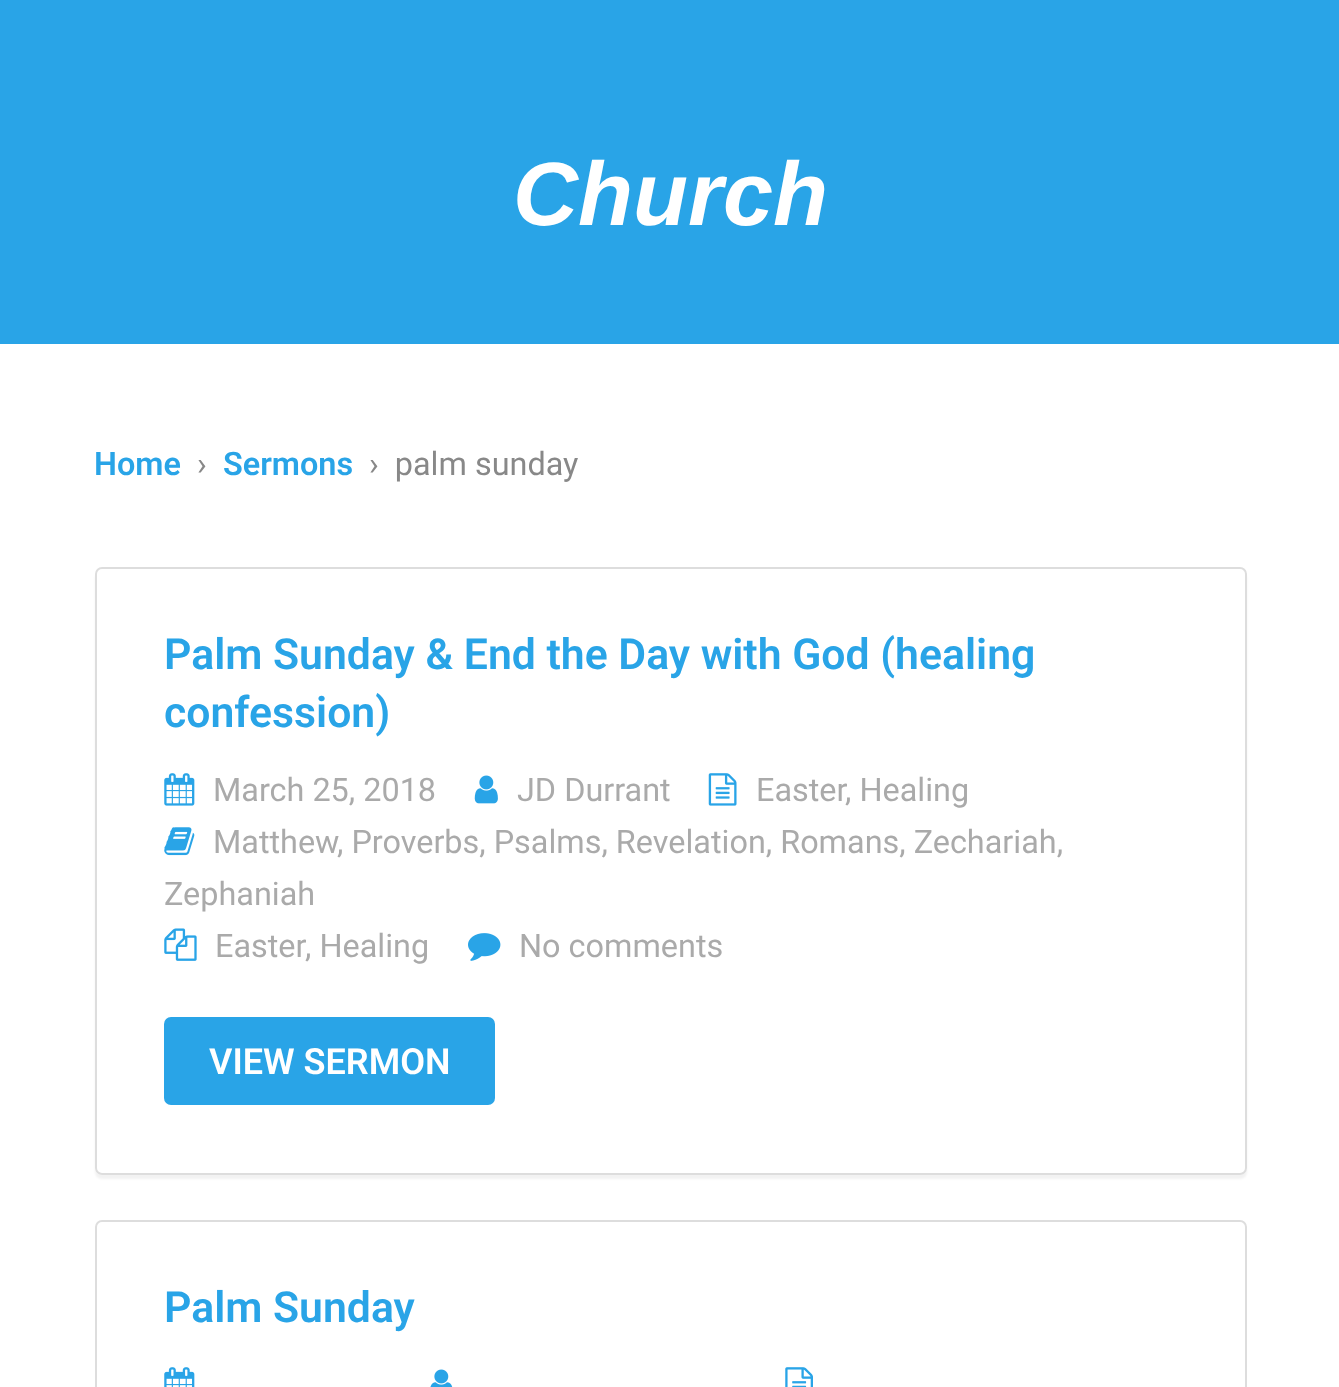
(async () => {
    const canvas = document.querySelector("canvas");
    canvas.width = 1339;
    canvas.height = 1387;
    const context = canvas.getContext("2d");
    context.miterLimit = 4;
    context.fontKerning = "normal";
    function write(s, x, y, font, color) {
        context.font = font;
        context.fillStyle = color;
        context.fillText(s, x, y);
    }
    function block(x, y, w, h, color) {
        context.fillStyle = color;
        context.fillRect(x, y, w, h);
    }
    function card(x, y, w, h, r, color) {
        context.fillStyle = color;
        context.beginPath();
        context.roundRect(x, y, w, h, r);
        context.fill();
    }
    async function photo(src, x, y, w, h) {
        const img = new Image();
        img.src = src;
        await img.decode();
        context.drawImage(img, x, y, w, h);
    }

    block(0, 0, 1339, 1387, "rgb(255, 255, 255)");
    block(0, 0, 1339, 344, "rgb(41, 164, 231)");
    write("Church", 513, 225, "italic bold 90px Liberation Sans", "rgb(255, 255, 255)");
    write("Home", 94, 475, "600 32.4px Roboto", "rgb(41, 164, 231)");
    write("›", 197, 475, "32.4px Roboto", "rgb(136, 136, 136)");
    write("Sermons", 223, 475, "600 32.4px Roboto", "rgb(41, 164, 231)");
    write("›  palm sunday", 369, 475, "32.4px Roboto", "rgb(136, 136, 136)");
    context.save();
    context.beginPath();
    context.moveTo(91, 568);
    context.lineTo(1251, 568);
    context.lineTo(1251, 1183);
    context.lineTo(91, 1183);
    context.closePath();
    context.moveTo(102, 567);
    context.lineTo(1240, 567);
    context.bezierCurveTo(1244, 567, 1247, 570, 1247, 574);
    context.lineTo(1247, 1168);
    context.bezierCurveTo(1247, 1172, 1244, 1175, 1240, 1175);
    context.lineTo(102, 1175);
    context.bezierCurveTo(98, 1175, 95, 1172, 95, 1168);
    context.lineTo(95, 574);
    context.bezierCurveTo(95, 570, 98, 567, 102, 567);
    context.closePath();
    context.clip("evenodd");
    context.fillStyle = "rgba(0, 0, 0, 0.05)";
    context.filter = "blur(1px)";
    context.beginPath();
    context.roundRect(95, 572, 1152, 607, 7);
    context.fill();
    context.filter = "none";
    context.restore();
    context.beginPath();
    context.roundRect(96, 568, 1150, 606, 6);
    context.strokeStyle = "rgb(221, 221, 221)";
    context.lineWidth = 2;
    context.stroke();
    write("Palm Sunday & End the Day with God (healing", 164, 669, "600 42.75px Roboto", "rgb(41, 164, 231)");
    write("confession)", 164, 727, "600 42.75px Roboto", "rgb(41, 164, 231)");
    await photo("media/1.png", 164, 773, 31, 33);
    write("March 25, 2018", 213, 801, "32.4px Roboto", "rgb(170, 170, 170)");
    await photo("media/2.png", 474, 775, 24, 29);
    write("JD Durrant", 517, 801, "32.4px Roboto", "rgb(170, 170, 170)");
    await photo("media/3.png", 708, 773, 29, 33);
    write("Easter", 756, 801, "32.4px Roboto", "rgb(170, 170, 170)");
    write(", Healing", 845, 801, "32.4px Roboto", "rgb(170, 170, 170)");
    await photo("media/4.png", 164, 827, 31, 29);
    write("Matthew", 213, 853, "32.4px Roboto", "rgb(170, 170, 170)");
    write(", Proverbs, Psalms, Revelation, Romans, Zechariah,", 337, 853, "32.4px Roboto", "rgb(170, 170, 170)");
    write("Zephaniah", 164, 905, "32.4px Roboto", "rgb(170, 170, 170)");
    await photo("media/5.png", 164, 928, 33, 33);
    write("Easter", 215, 957, "32.4px Roboto", "rgb(170, 170, 170)");
    write(", Healing", 305, 957, "32.4px Roboto", "rgb(170, 170, 170)");
    await photo("media/6.png", 468, 933, 33, 28);
    write("No comments", 519, 957, "32.4px Roboto", "rgb(170, 170, 170)");
    card(164, 1017, 331, 88, 7, "rgb(41, 164, 231)");
    write("VIEW SERMON", 209, 1074, "600 36px Roboto", "rgb(255, 255, 255)");
    context.beginPath();
    context.roundRect(96, 1221, 1150, 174, 6);
    context.stroke();
    write("Palm Sunday", 164, 1322, "600 42.75px Roboto", "rgb(41, 164, 231)");
    await photo("media/7.png", 164, 1367, 31, 20);
    await photo("media/8.png", 430, 1369, 23, 18);
    await photo("media/9.png", 785, 1367, 28, 20);
})();
